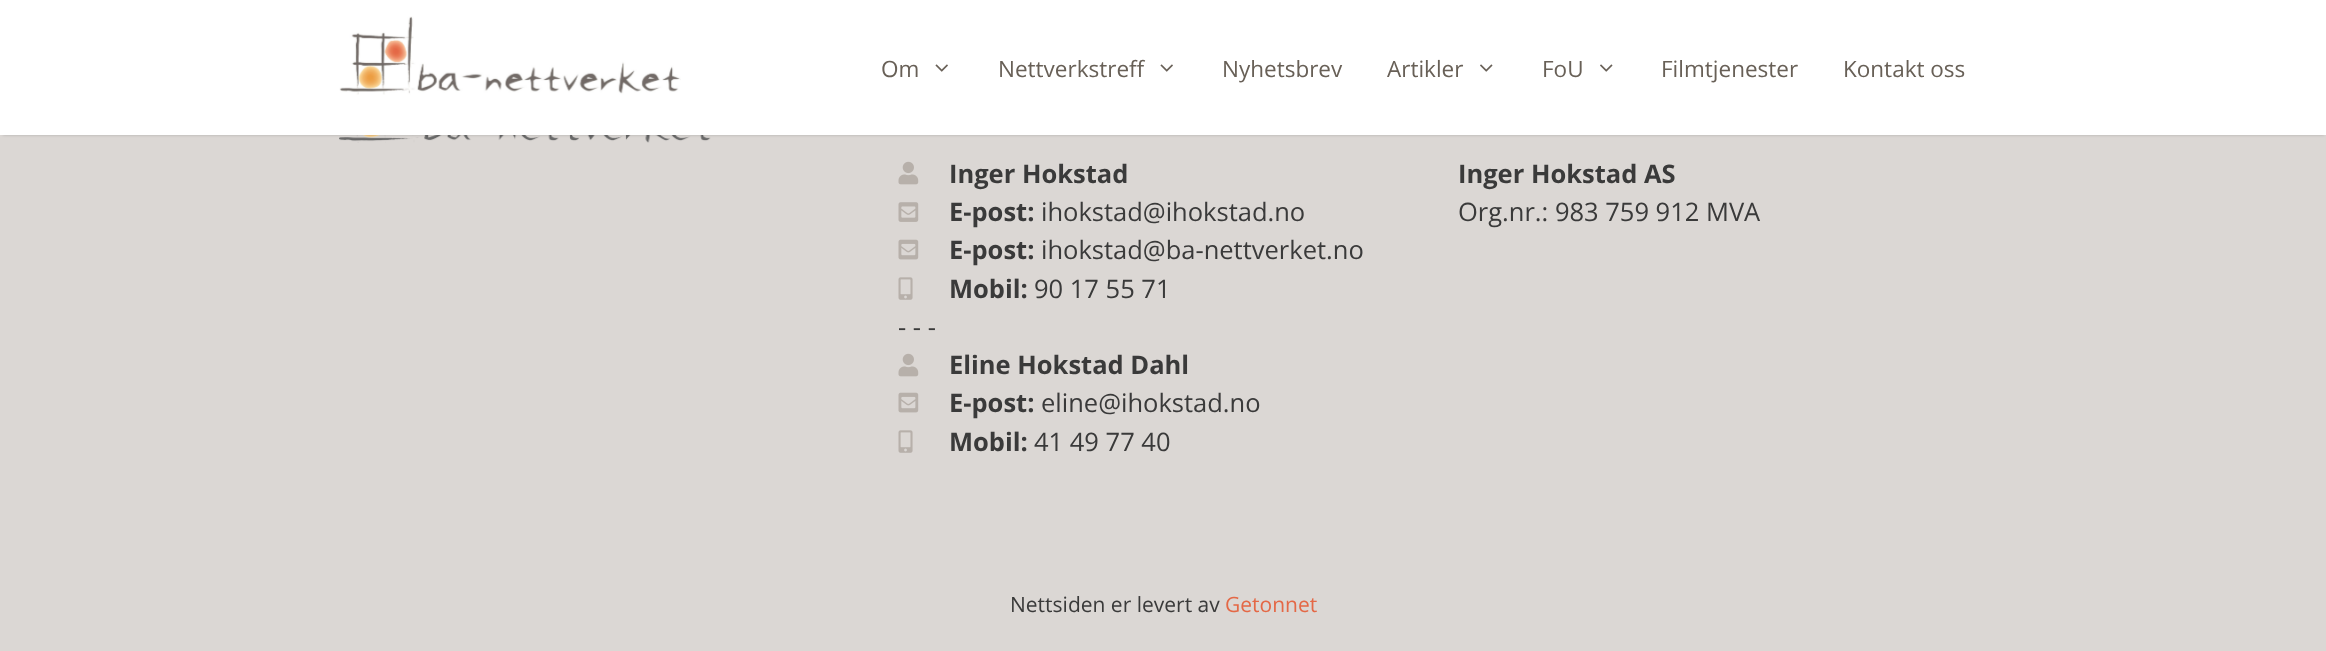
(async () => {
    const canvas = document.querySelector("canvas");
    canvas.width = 2326;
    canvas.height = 651;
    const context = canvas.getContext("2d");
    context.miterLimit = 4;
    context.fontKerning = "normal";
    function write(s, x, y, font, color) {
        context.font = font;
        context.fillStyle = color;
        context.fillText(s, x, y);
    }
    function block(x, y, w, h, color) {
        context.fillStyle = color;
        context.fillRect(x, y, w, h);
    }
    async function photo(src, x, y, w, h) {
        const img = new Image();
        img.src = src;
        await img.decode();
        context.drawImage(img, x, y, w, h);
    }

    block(0, 0, 2326, 651, "rgb(219, 215, 212)");
    await photo("media/4.png", 339, 135, 372, 8);
    context.fillStyle = "rgba(0, 0, 0, 0.2)";
    context.filter = "blur(1.5px)";
    context.beginPath();
    context.rect(3, 6, 2321, 129);
    context.fill();
    context.filter = "none";
    block(0, 0, 2326, 135, "rgb(255, 255, 255)");
    await photo("media/1.png", 339, 16, 342, 79);
    write("Om", 881, 77, "22.5px Open Sans", "rgb(104, 96, 87)");
    await photo("media/2.png", 935, 64, 13, 8);
    write("Nettverkstreff", 998, 77, "22.5px Open Sans", "rgb(104, 96, 87)");
    await photo("media/2.png", 1160, 64, 13, 8);
    write("Nyhetsbrev", 1222, 77, "22.5px Open Sans", "rgb(104, 96, 87)");
    write("Artikler", 1387, 77, "22.5px Open Sans", "rgb(104, 96, 87)");
    await photo("media/3.png", 1480, 64, 13, 8);
    write("FoU", 1542, 77, "22.5px Open Sans", "rgb(104, 96, 87)");
    await photo("media/3.png", 1600, 64, 13, 8);
    write("Filmtjenester", 1661, 77, "22.5px Open Sans", "rgb(104, 96, 87)");
    write("Kontakt oss", 1843, 77, "22.5px Open Sans", "rgb(104, 96, 87)");
    await photo("media/5.png", 898, 161, 21, 24);
    write("Inger Hokstad", 949, 183, "bold 25.5px Open Sans", "rgb(58, 58, 58)");
    await photo("media/6.png", 898, 202, 21, 20);
    write("E-post:", 949, 221, "bold 25.5px Open Sans", "rgb(58, 58, 58)");
    write("ihokstad@ihokstad.no", 1041, 221, "25.5px Open Sans", "rgb(58, 58, 58)");
    await photo("media/7.png", 898, 239, 21, 21);
    write("E-post:", 949, 259, "bold 25.5px Open Sans", "rgb(58, 58, 58)");
    write("ihokstad@ba-nettverket.no", 1041, 259, "25.5px Open Sans", "rgb(58, 58, 58)");
    await photo("media/8.png", 898, 277, 15, 23);
    write("Mobil:", 949, 298, "bold 25.5px Open Sans", "rgb(58, 58, 58)");
    write("90 17 55 71", 1034, 298, "25.5px Open Sans", "rgb(58, 58, 58)");
    write("- - -", 898, 336, "25.5px Open Sans", "rgb(58, 58, 58)");
    await photo("media/5.png", 898, 353, 21, 24);
    write("Eline Hokstad Dahl", 949, 374, "bold 25.5px Open Sans", "rgb(58, 58, 58)");
    await photo("media/7.png", 898, 392, 21, 21);
    write("E-post:", 949, 412, "bold 25.5px Open Sans", "rgb(58, 58, 58)");
    write("eline@ihokstad.no", 1041, 412, "25.5px Open Sans", "rgb(58, 58, 58)");
    await photo("media/8.png", 898, 430, 15, 23);
    write("Mobil:", 949, 451, "bold 25.5px Open Sans", "rgb(58, 58, 58)");
    write("41 49 77 40", 1034, 451, "25.5px Open Sans", "rgb(58, 58, 58)");
    write("Inger Hokstad AS", 1458, 183, "bold 25.5px Open Sans", "rgb(58, 58, 58)");
    write("Org.nr.: 983 759 912 MVA", 1458, 221, "25.5px Open Sans", "rgb(58, 58, 58)");
    write("Nettsiden er levert av", 1010, 612, "21px Open Sans", "rgb(58, 58, 58)");
    write("Getonnet", 1225, 612, "21px Open Sans", "rgb(228, 104, 70)");
})();
